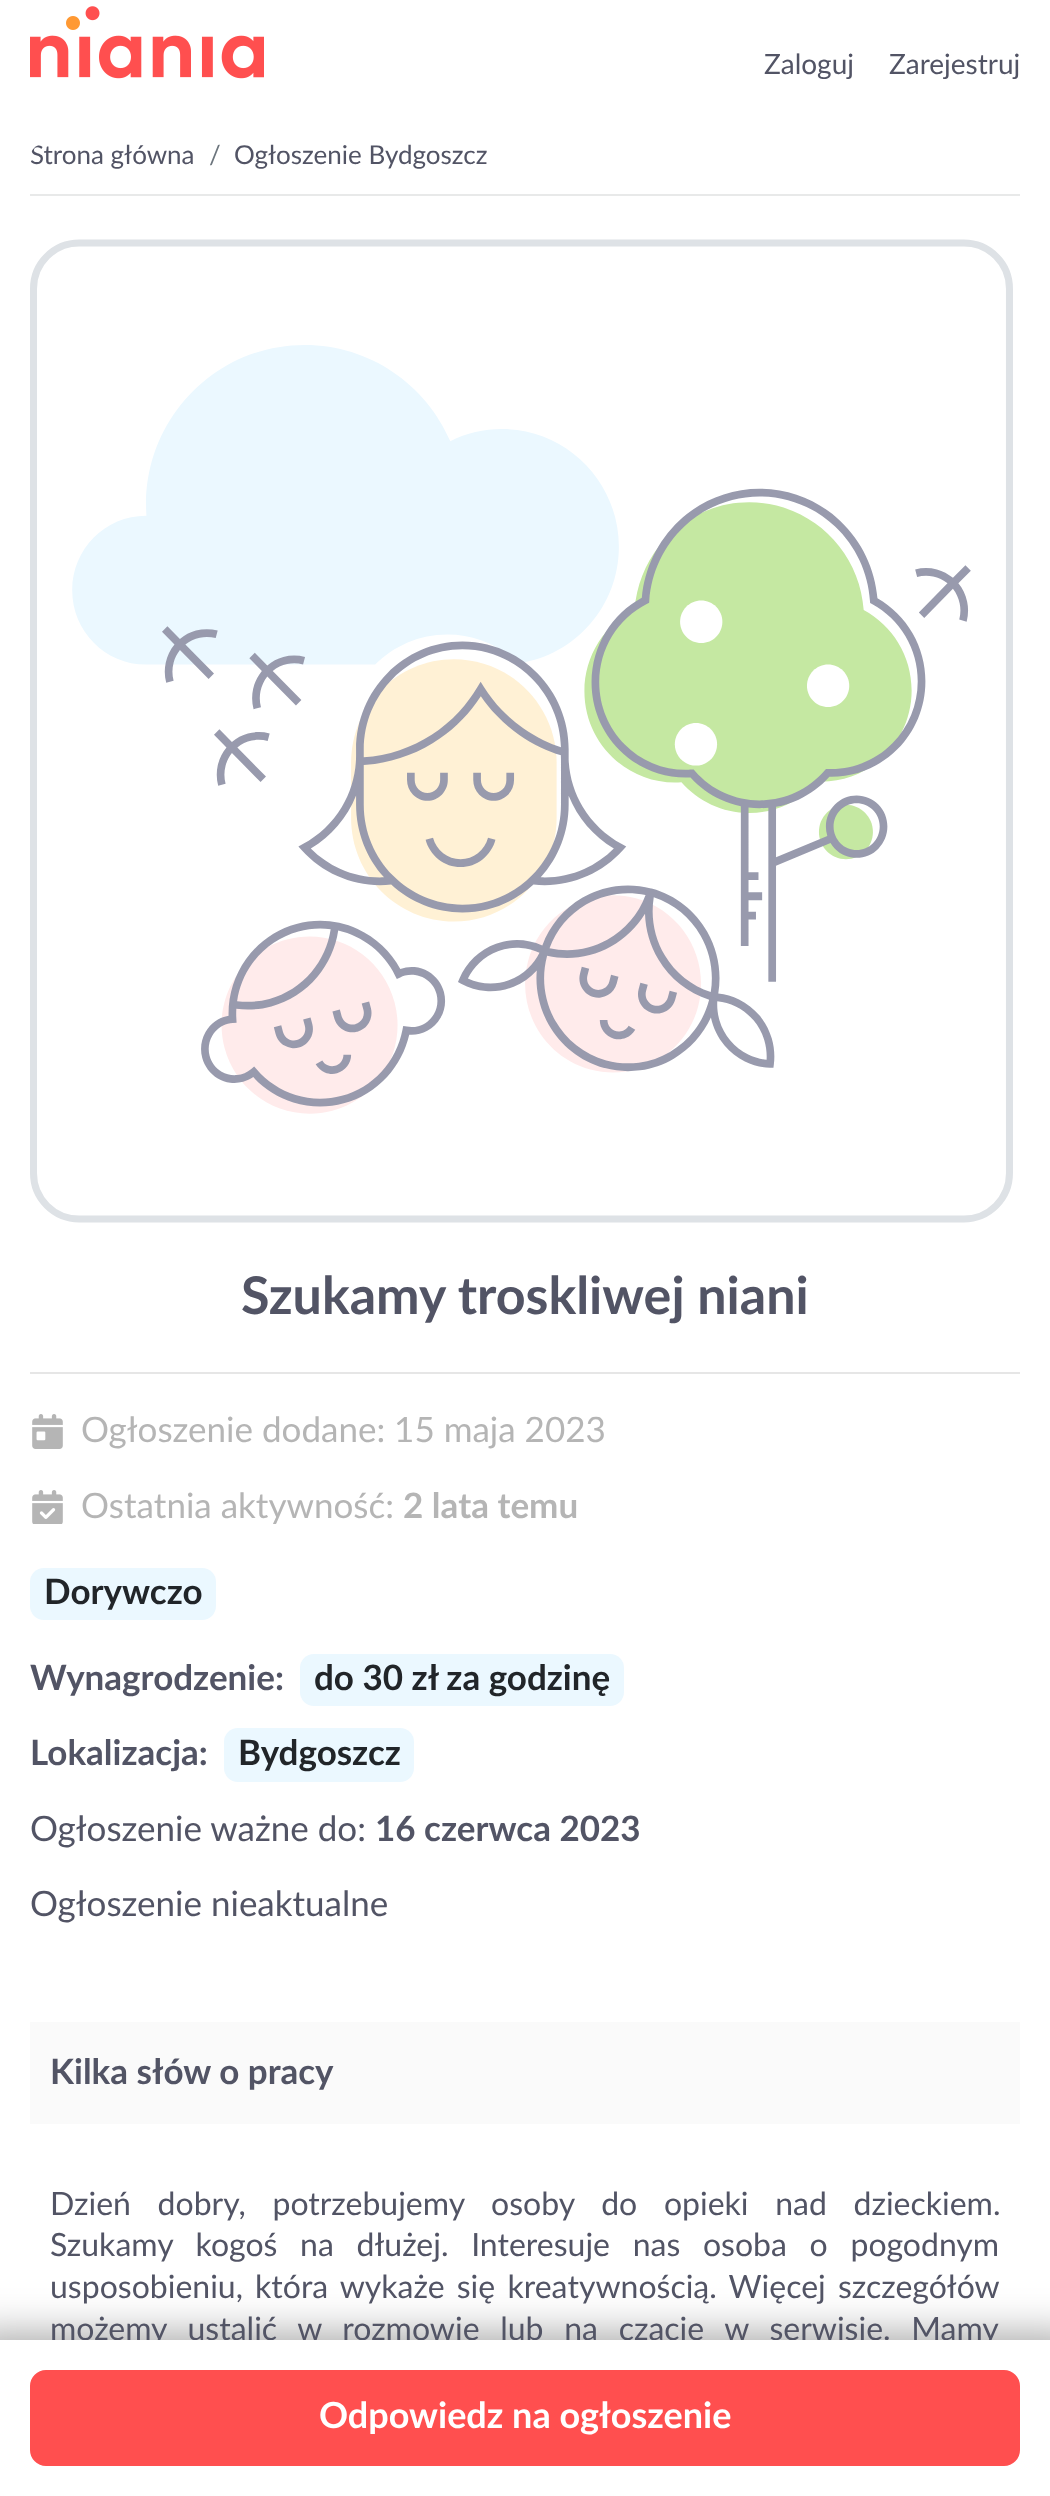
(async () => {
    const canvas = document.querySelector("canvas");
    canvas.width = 1050;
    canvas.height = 2496;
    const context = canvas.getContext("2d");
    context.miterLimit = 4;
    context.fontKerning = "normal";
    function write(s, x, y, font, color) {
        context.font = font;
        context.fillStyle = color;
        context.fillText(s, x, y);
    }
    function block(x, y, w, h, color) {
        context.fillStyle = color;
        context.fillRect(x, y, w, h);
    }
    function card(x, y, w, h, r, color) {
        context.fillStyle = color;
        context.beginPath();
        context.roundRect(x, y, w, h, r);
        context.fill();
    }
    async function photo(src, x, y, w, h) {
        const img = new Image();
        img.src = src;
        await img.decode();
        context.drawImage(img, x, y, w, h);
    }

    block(0, 0, 1050, 2496, "rgb(255, 255, 255)");
    await photo("media/1.png", 30, 6, 234, 73);
    write("Zaloguj", 764, 74, "28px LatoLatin", "rgb(82, 84, 101)");
    write("Zarejestruj", 889, 74, "28px LatoLatin", "rgb(82, 84, 101)");
    context.save();
    context.beginPath();
    context.roundRect(30, 144, 990, 50, 14);
    context.clip();
    write("Strona główna", 30, 164, "26px LatoLatin", "rgb(82, 84, 101)");
    context.restore();
    write("/", 209, 164, "26px LatoLatin", "rgb(108, 117, 125)");
    write("Ogłoszenie Bydgoszcz", 234, 164, "26px LatoLatin", "rgb(82, 84, 101)");
    block(30, 194, 990, 2, "rgb(232, 233, 233)");
    await photo("media/2.png", 30, 239, 983, 984);
    write("Szukamy troskliwej niani", 241, 1314, "bold 52px LatoLatin", "rgb(82, 84, 101)");
    block(30, 1372, 990, 2, "rgb(230, 230, 230)");
    await photo("media/3.png", 32, 1414, 31, 35);
    write("Ogłoszenie dodane: 15 maja 2023", 81, 1442, "35px LatoLatin", "rgb(181, 181, 181)");
    await photo("media/4.png", 32, 1490, 31, 34);
    write("Ostatnia aktywność:", 81, 1518, "35px LatoLatin", "rgb(181, 181, 181)");
    write("2 lata temu", 403, 1518, "bold 35px LatoLatin", "rgb(181, 181, 181)");
    card(30, 1568, 186, 52, 14, "rgb(235, 248, 255)");
    write("Dorywczo", 44, 1604, "bold 35px LatoLatin", "rgb(33, 37, 41)");
    write("Wynagrodzenie:", 30, 1690, "bold 35px LatoLatin", "rgb(82, 84, 101)");
    card(300, 1654, 324, 52, 14, "rgb(235, 248, 255)");
    write("do 30 zł za godzinę", 314, 1690, "bold 35px LatoLatin", "rgb(33, 37, 41)");
    write("Lokalizacja:", 30, 1765, "bold 35px LatoLatin", "rgb(82, 84, 101)");
    card(224, 1728, 190, 54, 14, "rgb(235, 248, 255)");
    write("Bydgoszcz", 238, 1765, "bold 35px LatoLatin", "rgb(33, 37, 41)");
    write("Ogłoszenie ważne do:", 30, 1841, "35px LatoLatin", "rgb(82, 84, 101)");
    write("16 czerwca 2023", 375, 1841, "bold 35px LatoLatin", "rgb(82, 84, 101)");
    write("Ogłoszenie nieaktualne", 30, 1916, "35px LatoLatin", "rgb(82, 84, 101)");
    context.fillStyle = "rgba(0, 0, 0, 0.35)";
    context.filter = "blur(21px)";
    context.beginPath();
    context.rect(-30, 2334, 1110, 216);
    context.fill();
    context.filter = "none";
    context.wordSpacing = "12.5px";
    write("możemy ustalić w rozmowie lub na czacie w serwisie. Mamy", 50, 2340, "32px LatoLatin", "rgb(82, 84, 101)");
    block(0, 2340, 1050, 156, "rgb(255, 255, 255)");
    context.fillStyle = "rgb(255, 79, 79)";
    context.beginPath();
    context.roundRect(31, 2371, 988, 94, 15);
    context.fill();
    context.strokeStyle = "rgb(255, 79, 79)";
    context.lineWidth = 2;
    context.stroke();
    context.wordSpacing = "0px";
    write("Odpowiedz na ogłoszenie", 319, 2428, "bold 36px LatoLatin", "rgb(255, 255, 255)");
    block(30, 2022, 990, 102, "rgb(250, 250, 250)");
    write("Kilka słów o pracy", 50, 2084, "bold 35px LatoLatin", "rgb(82, 84, 101)");
    context.wordSpacing = "18.5px";
    write("Dzień dobry, potrzebujemy osoby do opieki nad dzieckiem.", 50, 2215, "32px LatoLatin", "rgb(82, 84, 101)");
    context.wordSpacing = "14.5px";
    write("Szukamy kogoś na dłużej. Interesuje nas osoba o pogodnym", 50, 2256, "32px LatoLatin", "rgb(82, 84, 101)");
    context.wordSpacing = "4px";
    write("usposobieniu, która wykaże się kreatywnością. Więcej szczegółów", 50, 2298, "32px LatoLatin", "rgb(82, 84, 101)");
})();
